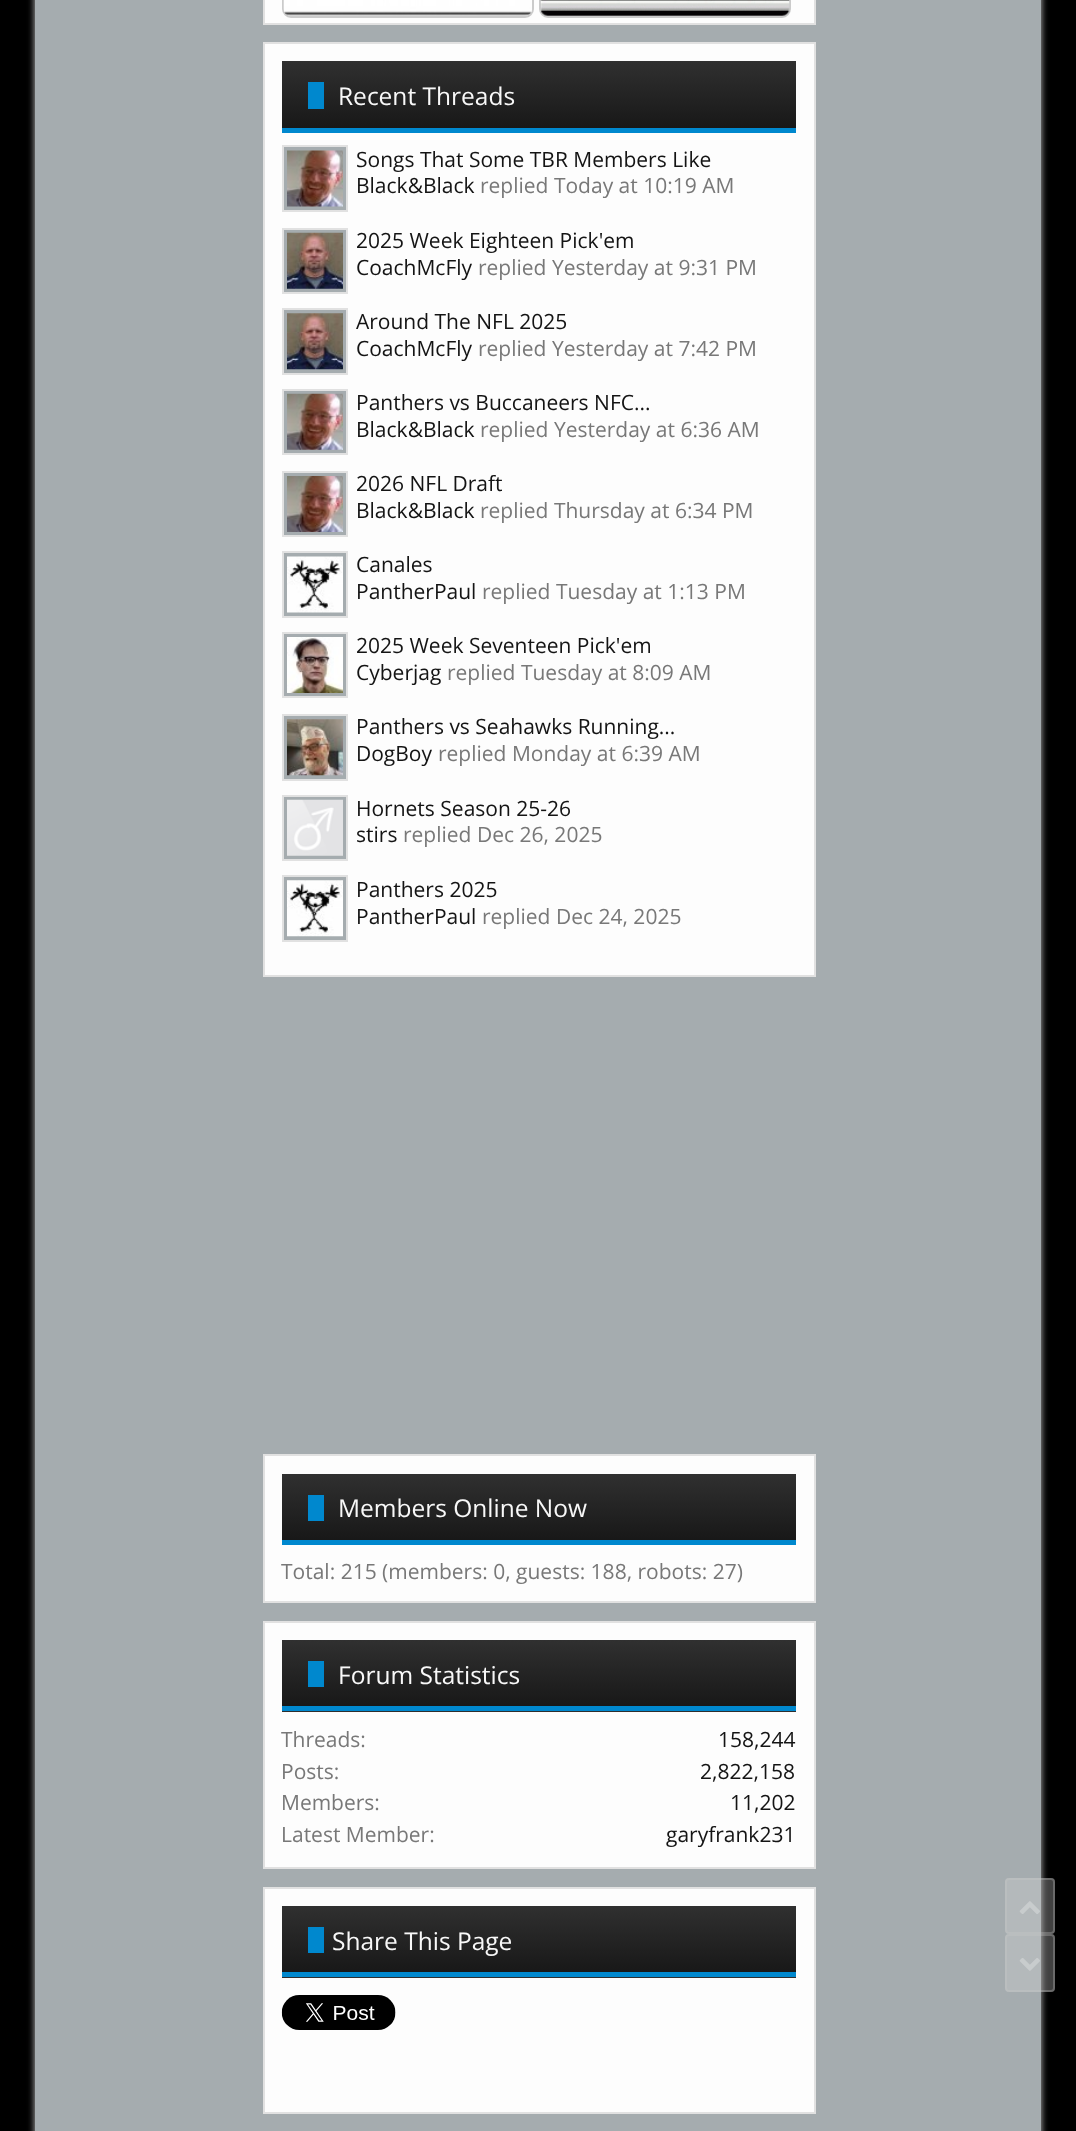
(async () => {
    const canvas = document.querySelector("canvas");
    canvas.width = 1076;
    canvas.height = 2131;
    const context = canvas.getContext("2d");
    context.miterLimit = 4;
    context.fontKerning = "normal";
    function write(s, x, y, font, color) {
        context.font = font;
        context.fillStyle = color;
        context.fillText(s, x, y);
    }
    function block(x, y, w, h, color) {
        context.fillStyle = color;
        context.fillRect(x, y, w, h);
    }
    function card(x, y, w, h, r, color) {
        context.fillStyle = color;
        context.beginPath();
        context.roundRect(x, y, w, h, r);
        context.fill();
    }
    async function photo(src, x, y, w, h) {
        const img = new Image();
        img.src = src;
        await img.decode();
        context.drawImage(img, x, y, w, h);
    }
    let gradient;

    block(0, 0, 1076, 2131, "rgb(0, 0, 0)");
    context.fillStyle = "rgb(194, 194, 194)";
    context.filter = "blur(3.5px)";
    context.beginPath();
    context.rect(35, -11, 1006, 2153);
    context.fill();
    context.filter = "none";
    block(35, 0, 1006, 2131, "rgb(165, 172, 175)");
    context.fillStyle = "rgb(253, 253, 253)";
    context.beginPath();
    context.rect(264, -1, 551, 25);
    context.fill();
    context.strokeStyle = "rgb(225, 225, 225)";
    context.lineWidth = 2;
    context.stroke();
    context.beginPath();
    context.roundRect(283, -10, 250, 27, 8);
    context.strokeStyle = "rgb(203, 203, 203)";
    context.stroke();
    await photo("media/1.png", 283, 0, 249, 16);
    context.beginPath();
    context.roundRect(540, -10, 250, 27, 8);
    context.stroke();
    await photo("media/2.png", 540, 0, 250, 16);
    context.beginPath();
    context.rect(264, 43, 551, 933);
    context.fill();
    context.strokeStyle = "rgb(225, 225, 225)";
    context.stroke();
    gradient = context.createLinearGradient(539, 61, 539, 128);
    gradient.addColorStop(0, "rgb(48, 48, 48)");
    gradient.addColorStop(1, "rgb(24, 24, 24)");
    context.fillStyle = gradient;
    context.fillRect(282, 61, 514, 67);
    block(282, 128, 514, 5, "rgb(0, 136, 206)");
    block(308, 82, 16, 27, "rgb(0, 136, 206)");
    write("Recent Threads", 338, 105, "24.5px Open Sans", "rgb(248, 248, 248)");
    context.fillStyle = "rgb(165, 172, 175)";
    context.beginPath();
    context.rect(283, 146, 64, 65);
    context.fill();
    context.stroke();
    await photo("media/3.png", 287, 150, 56, 57);
    write("Songs That Some TBR Members Like", 356, 167, "21px Open Sans", "rgb(20, 20, 20)");
    write("Black&Black", 356, 193, "21px Open Sans", "rgb(20, 20, 20)");
    write("replied Today at 10:19 AM", 480, 193, "21px Open Sans", "rgb(120, 120, 120)");
    context.fillStyle = "rgb(165, 172, 175)";
    context.beginPath();
    context.rect(283, 229, 64, 64);
    context.fill();
    context.stroke();
    await photo("media/4.png", 287, 232, 56, 57);
    write("2025 Week Eighteen Pick'em", 356, 248, "21px Open Sans", "rgb(20, 20, 20)");
    write("CoachMcFly", 356, 275, "21px Open Sans", "rgb(20, 20, 20)");
    write("replied Yesterday at 9:31 PM", 478, 275, "21px Open Sans", "rgb(120, 120, 120)");
    context.fillStyle = "rgb(165, 172, 175)";
    context.beginPath();
    context.rect(283, 309, 64, 65);
    context.fill();
    context.stroke();
    await photo("media/5.png", 287, 313, 56, 57);
    write("Around The NFL 2025", 356, 329, "21px Open Sans", "rgb(20, 20, 20)");
    write("CoachMcFly", 356, 356, "21px Open Sans", "rgb(20, 20, 20)");
    write("replied Yesterday at 7:42 PM", 478, 356, "21px Open Sans", "rgb(120, 120, 120)");
    context.fillStyle = "rgb(165, 172, 175)";
    context.beginPath();
    context.rect(283, 390, 64, 64);
    context.fill();
    context.stroke();
    await photo("media/6.png", 287, 393, 56, 57);
    write("Panthers vs Buccaneers NFC...", 356, 410, "21px Open Sans", "rgb(20, 20, 20)");
    write("Black&Black", 356, 437, "21px Open Sans", "rgb(20, 20, 20)");
    write("replied Yesterday at 6:36 AM", 480, 437, "21px Open Sans", "rgb(120, 120, 120)");
    context.fillStyle = "rgb(165, 172, 175)";
    context.beginPath();
    context.rect(283, 472, 64, 64);
    context.fill();
    context.stroke();
    await photo("media/7.png", 287, 476, 56, 56);
    write("2026 NFL Draft", 356, 491, "21px Open Sans", "rgb(20, 20, 20)");
    write("Black&Black", 356, 518, "21px Open Sans", "rgb(20, 20, 20)");
    write("replied Thursday at 6:34 PM", 480, 518, "21px Open Sans", "rgb(120, 120, 120)");
    context.fillStyle = "rgb(165, 172, 175)";
    context.beginPath();
    context.rect(283, 552, 64, 65);
    context.fill();
    context.stroke();
    await photo("media/8.png", 287, 556, 56, 57);
    write("Canales", 356, 572, "21px Open Sans", "rgb(20, 20, 20)");
    write("PantherPaul", 356, 599, "21px Open Sans", "rgb(20, 20, 20)");
    write("replied Tuesday at 1:13 PM", 482, 599, "21px Open Sans", "rgb(120, 120, 120)");
    context.fillStyle = "rgb(165, 172, 175)";
    context.beginPath();
    context.rect(283, 633, 64, 64);
    context.fill();
    context.stroke();
    await photo("media/9.png", 287, 637, 56, 56);
    write("2025 Week Seventeen Pick'em", 356, 653, "21px Open Sans", "rgb(20, 20, 20)");
    write("Cyberjag", 356, 680, "21px Open Sans", "rgb(20, 20, 20)");
    write("replied Tuesday at 8:09 AM", 447, 680, "21px Open Sans", "rgb(120, 120, 120)");
    context.fillStyle = "rgb(165, 172, 175)";
    context.beginPath();
    context.rect(283, 715, 64, 65);
    context.fill();
    context.stroke();
    await photo("media/10.png", 287, 719, 56, 57);
    write("Panthers vs Seahawks Running...", 356, 734, "21px Open Sans", "rgb(20, 20, 20)");
    write("DogBoy", 356, 761, "21px Open Sans", "rgb(20, 20, 20)");
    write("replied Monday at 6:39 AM", 438, 761, "21px Open Sans", "rgb(120, 120, 120)");
    context.fillStyle = "rgb(165, 172, 175)";
    context.beginPath();
    context.rect(283, 796, 64, 64);
    context.fill();
    context.stroke();
    await photo("media/11.png", 287, 799, 56, 57);
    write("Hornets Season 25-26", 356, 816, "21px Open Sans", "rgb(20, 20, 20)");
    write("stirs", 356, 842, "21px Open Sans", "rgb(20, 20, 20)");
    write("replied Dec 26, 2025", 403, 842, "21px Open Sans", "rgb(120, 120, 120)");
    context.fillStyle = "rgb(165, 172, 175)";
    context.beginPath();
    context.rect(283, 876, 64, 65);
    context.fill();
    context.stroke();
    await photo("media/12.png", 287, 880, 56, 57);
    write("Panthers 2025", 356, 897, "21px Open Sans", "rgb(20, 20, 20)");
    write("PantherPaul", 356, 924, "21px Open Sans", "rgb(20, 20, 20)");
    write("replied Dec 24, 2025", 482, 924, "21px Open Sans", "rgb(120, 120, 120)");
    context.fillStyle = "rgb(253, 253, 253)";
    context.beginPath();
    context.rect(264, 1455, 551, 147);
    context.fill();
    context.stroke();
    gradient = context.createLinearGradient(539, 1474, 539, 1540);
    gradient.addColorStop(0, "rgb(48, 48, 48)");
    gradient.addColorStop(1, "rgb(24, 24, 24)");
    context.fillStyle = gradient;
    context.fillRect(282, 1474, 514, 66);
    block(282, 1540, 514, 5, "rgb(0, 136, 206)");
    block(308, 1495, 16, 26, "rgb(0, 136, 206)");
    write("Members Online Now", 338, 1517, "24.5px Open Sans", "rgb(248, 248, 248)");
    write("Total: 215 (members: 0, guests: 188, robots: 27)", 281, 1579, "21px Open Sans", "rgb(120, 120, 120)");
    context.fillStyle = "rgb(253, 253, 253)";
    context.beginPath();
    context.rect(264, 1622, 551, 246);
    context.fill();
    context.stroke();
    gradient = context.createLinearGradient(539, 1640, 539, 1706);
    gradient.addColorStop(0, "rgb(48, 48, 48)");
    gradient.addColorStop(1, "rgb(24, 24, 24)");
    context.fillStyle = gradient;
    context.fillRect(282, 1640, 514, 66);
    gradient = context.createLinearGradient(539, 1706, 539, 1773);
    gradient.addColorStop(0, "rgb(48, 48, 48)");
    gradient.addColorStop(1, "rgb(24, 24, 24)");
    context.fillStyle = gradient;
    context.fillRect(282, 1711, 514, 1);
    block(282, 1706, 514, 5, "rgb(0, 136, 206)");
    block(308, 1661, 16, 26, "rgb(0, 136, 206)");
    write("Forum Statistics", 338, 1684, "24.5px Open Sans", "rgb(248, 248, 248)");
    write("Threads:", 281, 1747, "21px Open Sans", "rgb(120, 120, 120)");
    write("158,244", 718, 1747, "21px Open Sans", "rgb(20, 20, 20)");
    write("Posts:", 281, 1779, "21px Open Sans", "rgb(120, 120, 120)");
    write("2,822,158", 700, 1779, "21px Open Sans", "rgb(20, 20, 20)");
    write("Members:", 281, 1810, "21px Open Sans", "rgb(120, 120, 120)");
    write("11,202", 730, 1810, "21px Open Sans", "rgb(20, 20, 20)");
    write("Latest Member:", 281, 1842, "21px Open Sans", "rgb(120, 120, 120)");
    write("garyfrank231", 666, 1842, "21px Open Sans", "rgb(20, 20, 20)");
    context.fillStyle = "rgb(253, 253, 253)";
    context.beginPath();
    context.rect(264, 1888, 551, 225);
    context.fill();
    context.stroke();
    gradient = context.createLinearGradient(539, 1906, 539, 1972);
    gradient.addColorStop(0, "rgb(48, 48, 48)");
    gradient.addColorStop(1, "rgb(24, 24, 24)");
    context.fillStyle = gradient;
    context.fillRect(282, 1906, 514, 66);
    gradient = context.createLinearGradient(539, 1972, 539, 2039);
    gradient.addColorStop(0, "rgb(48, 48, 48)");
    gradient.addColorStop(1, "rgb(24, 24, 24)");
    context.fillStyle = gradient;
    context.fillRect(282, 1977, 514, 1);
    block(282, 1972, 514, 5, "rgb(0, 136, 206)");
    block(308, 1927, 16, 26, "rgb(0, 136, 206)");
    write("Share This Page", 332, 1950, "24.5px Open Sans", "rgb(248, 248, 248)");
    await photo("media/13.png", 281, 1995, 115, 35);
    card(1005, 1878, 50, 56, 4, "rgba(215, 215, 215, 0.3)");
    context.beginPath();
    context.roundRect(1006, 1879, 48, 54, 3);
    context.strokeStyle = "rgba(203, 203, 203, 0.3)";
    context.stroke();
    await photo("media/14.png", 1019, 1901, 21, 13);
    card(1005, 1934, 50, 58, 4, "rgba(215, 215, 215, 0.3)");
    context.beginPath();
    context.roundRect(1006, 1935, 48, 56, 3);
    context.stroke();
    await photo("media/15.png", 1019, 1958, 21, 13);
})();
